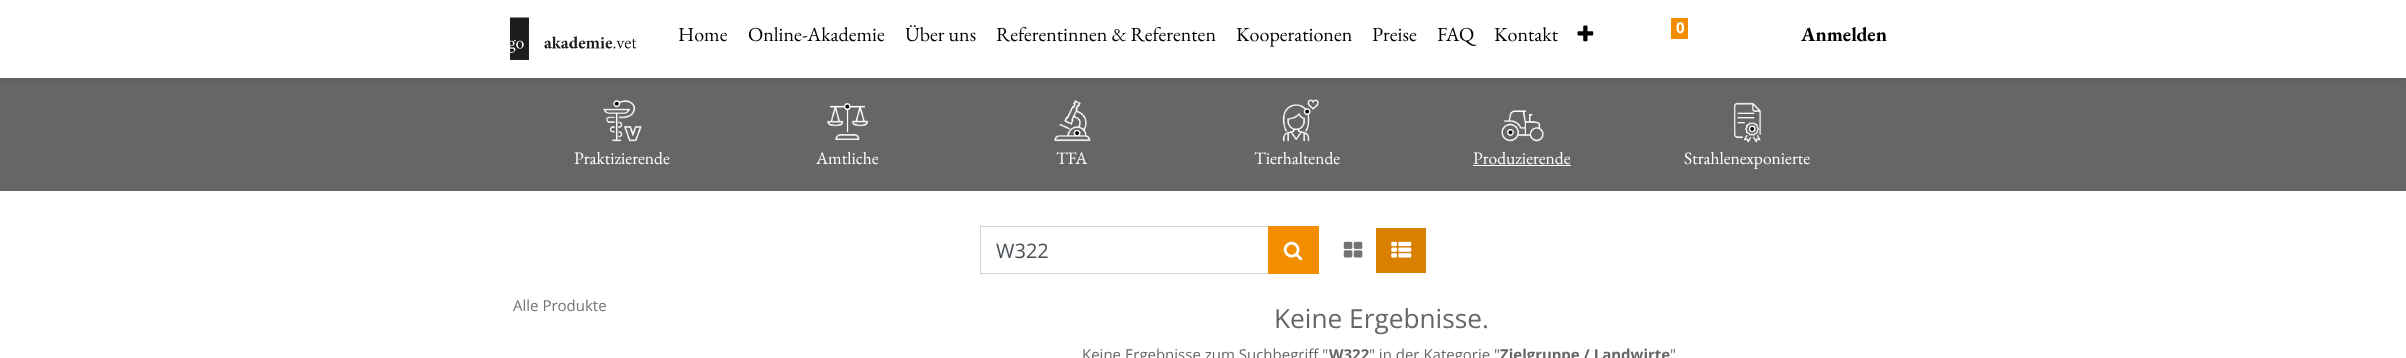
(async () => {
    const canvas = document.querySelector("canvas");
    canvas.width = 2406;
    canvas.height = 358;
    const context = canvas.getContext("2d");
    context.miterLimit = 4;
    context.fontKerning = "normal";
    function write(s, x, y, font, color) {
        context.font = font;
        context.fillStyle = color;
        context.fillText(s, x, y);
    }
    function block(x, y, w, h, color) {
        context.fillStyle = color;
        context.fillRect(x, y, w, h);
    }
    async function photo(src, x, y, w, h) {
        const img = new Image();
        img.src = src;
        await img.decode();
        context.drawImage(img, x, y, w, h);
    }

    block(0, 0, 2406, 358, "rgb(255, 255, 255)");
    block(0, 78, 2406, 113, "rgb(102, 102, 102)");
    context.fillStyle = "rgba(0, 0, 0, 0.07)";
    context.filter = "blur(2.5px)";
    context.beginPath();
    context.rect(0, 3, 2406, 77);
    context.fill();
    context.filter = "none";
    block(0, 0, 2406, 78, "rgb(255, 255, 255)");
    await photo("media/1.png", 510, 17, 127, 43);
    write("Home", 678, 41, "20px EB Garamond", "rgb(0, 0, 0)");
    write("Online-Akademie", 748, 41, "20px EB Garamond", "rgb(0, 0, 0)");
    write("Über uns", 905, 41, "20px EB Garamond", "rgb(0, 0, 0)");
    write("Referentinnen & Referenten", 996, 41, "20px EB Garamond", "rgb(0, 0, 0)");
    write("Kooperationen", 1236, 41, "20px EB Garamond", "rgb(0, 0, 0)");
    write("Preise", 1372, 41, "20px EB Garamond", "rgb(0, 0, 0)");
    write("FAQ", 1437, 41, "20px EB Garamond", "rgb(0, 0, 0)");
    write("Kontakt", 1494, 41, "20px EB Garamond", "rgb(0, 0, 0)");
    await photo("media/2.png", 1577, 25, 17, 17);
    block(1671, 18, 17, 21, "rgb(242, 142, 0)");
    write("0", 1676, 33, "bold 15px Open Sans", "rgb(255, 255, 255)");
    write("Anmelden", 1801, 41, "bold 20px EB Garamond", "rgb(0, 0, 0)");
    await photo("media/3.png", 603, 99, 39, 43);
    write("Praktizierende", 574, 164, "17.5px EB Garamond", "rgb(255, 255, 255)");
    await photo("media/4.png", 827, 102, 42, 38);
    write("Amtliche", 816, 164, "17.5px EB Garamond", "rgb(255, 255, 255)");
    await photo("media/5.png", 1054, 100, 37, 42);
    write("TFA", 1056, 164, "17.5px EB Garamond", "rgb(255, 255, 255)");
    await photo("media/6.png", 1282, 99, 37, 43);
    write("Tierhaltende", 1254, 164, "17.5px EB Garamond", "rgb(255, 255, 255)");
    await photo("media/7.png", 1501, 110, 43, 32);
    write("Produzierende", 1473, 164, "17.5px EB Garamond", "rgb(255, 255, 255)");
    block(1473, 165, 98, 1, "rgb(255, 255, 255)");
    await photo("media/8.png", 1734, 102, 28, 41);
    write("Strahlenexponierte", 1684, 164, "17.5px EB Garamond", "rgb(255, 255, 255)");
    context.strokeStyle = "rgb(206, 212, 218)";
    context.strokeRect(980.5, 226.5, 288, 47);
    write("W322", 996, 258, "20px Open Sans", "rgb(73, 80, 87)");
    block(1268, 226, 51, 48, "rgb(242, 142, 0)");
    await photo("media/9.png", 1283, 241, 20, 20);
    await photo("media/10.png", 1343, 241, 20, 17);
    block(1376, 228, 50, 45, "rgb(218, 128, 0)");
    await photo("media/11.png", 1391, 241, 21, 17);
    write("Alle Produkte", 513, 311, "15px Open Sans", "rgb(115, 115, 115)");
    write("Keine Ergebnisse.", 1274, 328, "26.25px Open Sans", "rgb(100, 102, 105)");
    write("Keine Ergebnisse zum Suchbegriff \"", 1082, 360, "15px Open Sans", "rgb(100, 102, 105)");
    write("W322", 1329, 360, "bold 15px Open Sans", "rgb(100, 102, 105)");
    write("\" in der Kategorie \"", 1369, 360, "15px Open Sans", "rgb(100, 102, 105)");
    write("Zielgruppe / Landwirte", 1500, 360, "bold 15px Open Sans", "rgb(100, 102, 105)");
    write("\"", 1670, 360, "15px Open Sans", "rgb(100, 102, 105)");
})();
